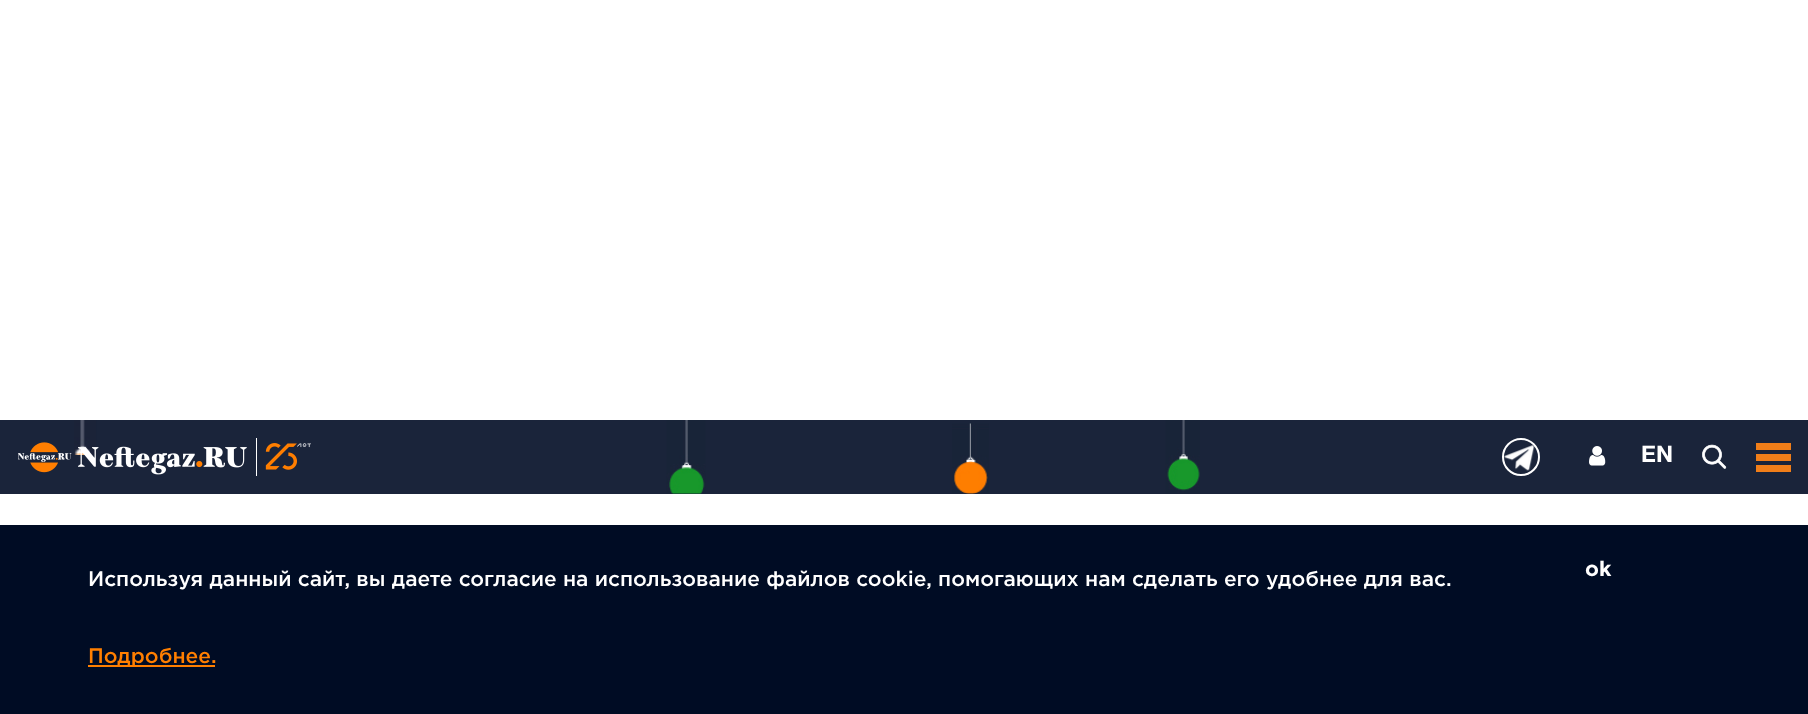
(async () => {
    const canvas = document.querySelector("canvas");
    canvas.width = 1808;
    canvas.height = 714;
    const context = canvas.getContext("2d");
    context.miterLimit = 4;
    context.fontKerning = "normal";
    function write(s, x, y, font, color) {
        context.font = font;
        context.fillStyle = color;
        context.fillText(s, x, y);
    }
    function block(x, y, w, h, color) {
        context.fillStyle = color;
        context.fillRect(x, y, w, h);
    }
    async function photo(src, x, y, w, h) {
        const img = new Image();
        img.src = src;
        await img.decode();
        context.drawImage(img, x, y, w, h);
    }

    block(0, 0, 1808, 714, "rgb(255, 255, 255)");
    block(0, 420, 1808, 74, "rgb(26, 36, 58)");
    await photo("media/1.png", 74, 420, 1126, 74);
    await photo("media/2.png", 18, 438, 293, 38);
    await photo("media/3.png", 1504, 445, 31, 26);
    context.beginPath();
    context.arc(1521, 457, 18, 0, Math.PI * 2);
    context.strokeStyle = "rgb(255, 255, 255)";
    context.lineWidth = 2;
    context.stroke();
    await photo("media/4.png", 1589, 446, 17, 20);
    write("EN", 1641, 462, "bold 23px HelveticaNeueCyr", "rgb(255, 255, 255)");
    await photo("media/5.png", 1702, 444, 25, 25);
    block(1756, 443, 35, 7, "rgb(240, 126, 25)");
    block(1756, 454, 35, 7, "rgb(240, 126, 25)");
    block(1756, 465, 35, 7, "rgb(240, 126, 25)");
    block(0, 525, 1808, 189, "rgb(0, 12, 36)");
    write("Используя данный сайт, вы даете согласие на использование файлов cookie, помогающих нам сделать его удобнее для вас.", 88, 586, "21px Gotham", "rgb(255, 255, 255)");
    block(88, 665, 127, 2, "rgb(255, 127, 0)");
    write("Подробнее.", 88, 663, "21px Gotham", "rgb(255, 127, 0)");
    write("ok", 1585, 576, "bold 21px Gotham", "rgb(255, 255, 255)");
})();
